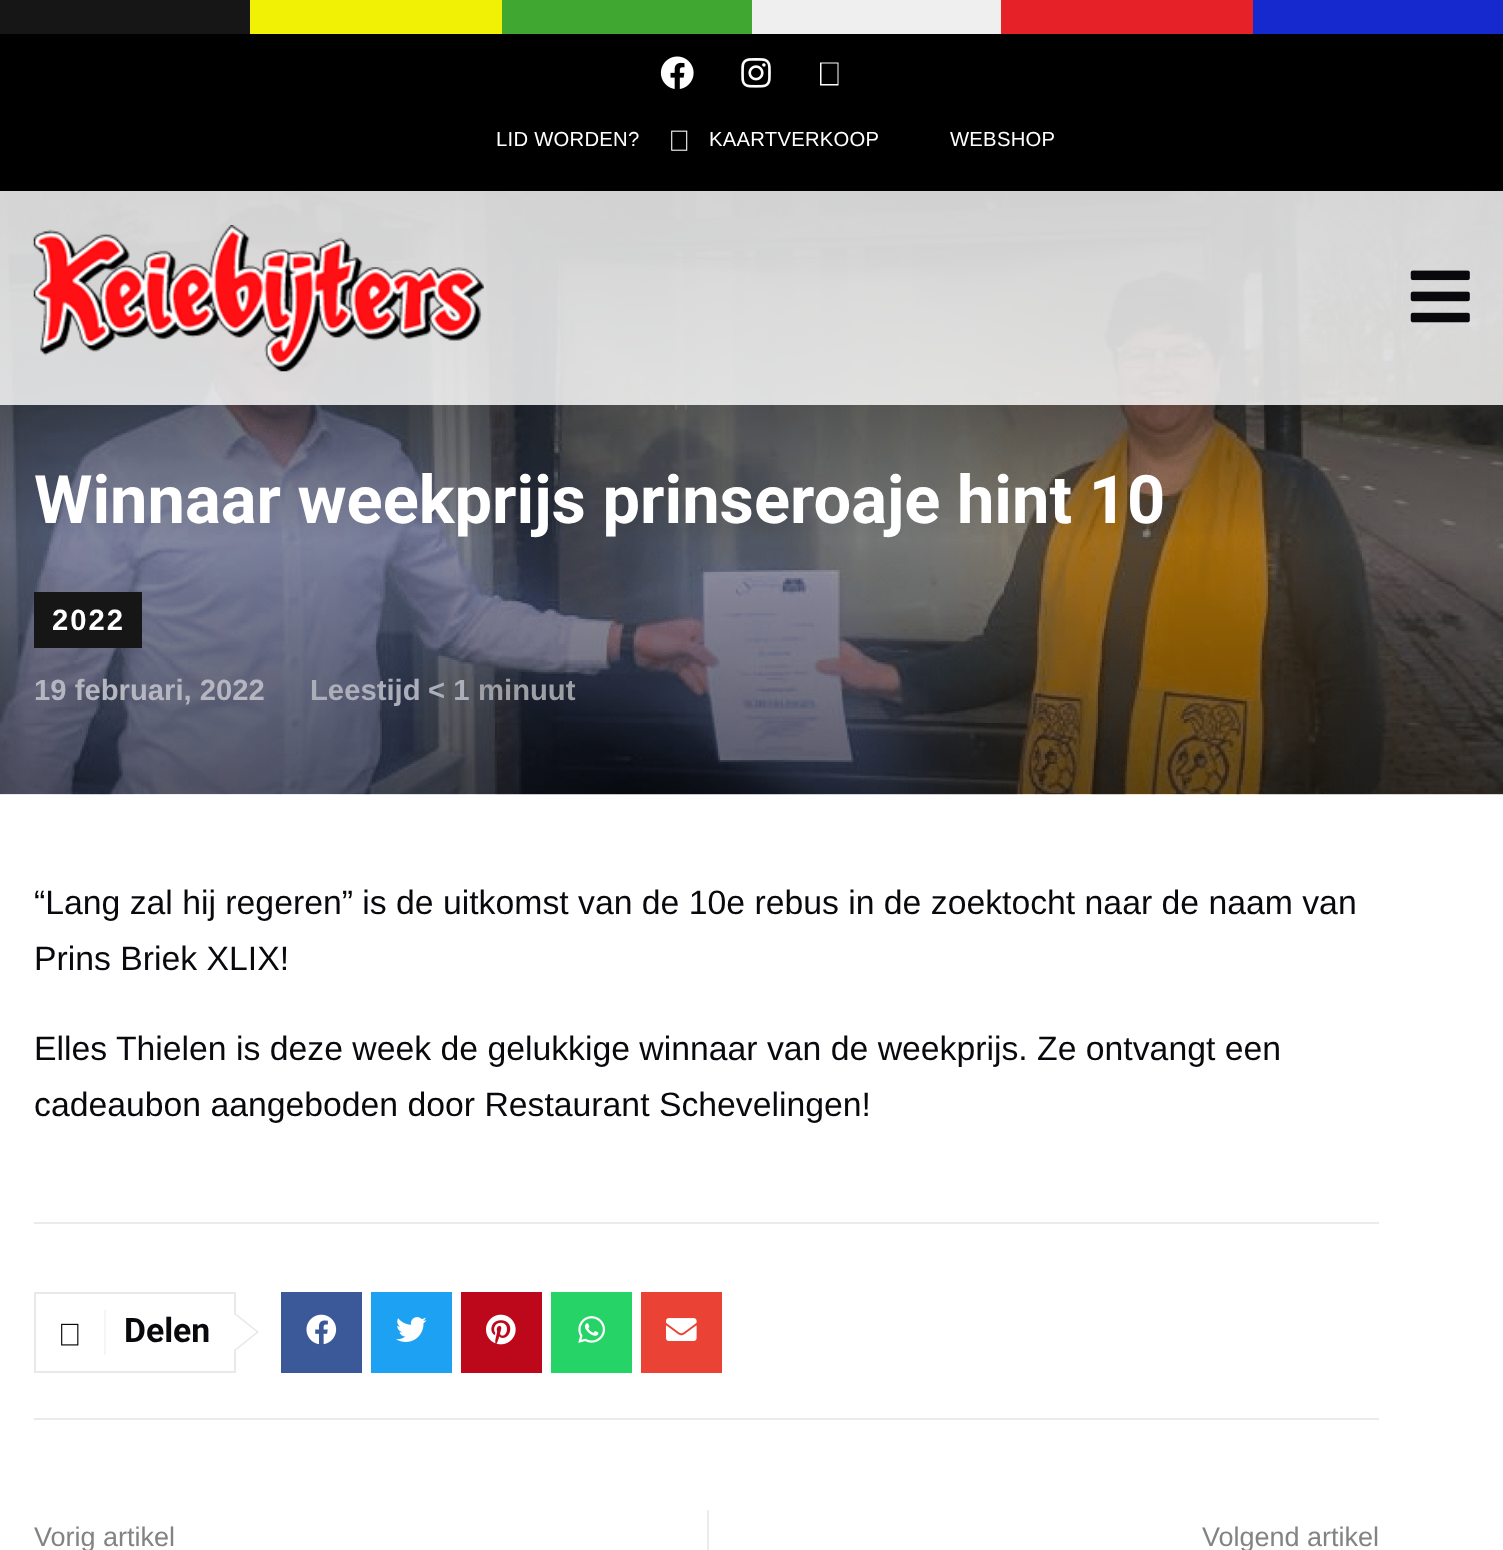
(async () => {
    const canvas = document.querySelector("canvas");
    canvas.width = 1503;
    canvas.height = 1550;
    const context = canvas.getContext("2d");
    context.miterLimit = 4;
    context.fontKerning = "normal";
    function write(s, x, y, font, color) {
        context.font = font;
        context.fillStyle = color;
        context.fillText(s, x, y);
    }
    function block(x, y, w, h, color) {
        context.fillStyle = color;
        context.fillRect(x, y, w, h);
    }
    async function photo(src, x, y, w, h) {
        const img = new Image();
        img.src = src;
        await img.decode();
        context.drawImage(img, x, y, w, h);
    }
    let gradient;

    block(0, 0, 1503, 1550, "rgb(255, 255, 255)");
    block(0, 0, 250, 34, "rgb(22, 22, 22)");
    block(250, 0, 252, 34, "rgb(241, 241, 5)");
    block(502, 0, 250, 34, "rgb(64, 168, 48)");
    block(752, 0, 249, 34, "rgb(239, 239, 239)");
    block(1001, 0, 252, 34, "rgb(230, 33, 39)");
    block(1253, 0, 250, 34, "rgb(22, 41, 206)");
    block(0, 34, 1503, 157, "rgb(0, 0, 0)");
    await photo("media/1.png", 660, 56, 34, 33);
    await photo("media/2.png", 741, 58, 30, 30);
    context.fillStyle = "rgb(255, 255, 255)";
    context.beginPath();
    context.moveTo(820, 62.5);
    context.lineTo(838.5, 62.5);
    context.lineTo(838.5, 85.5);
    context.lineTo(820, 85.5);
    context.closePath();
    context.moveTo(821.5, 63.5);
    context.lineTo(821.5, 84);
    context.lineTo(837.5, 84);
    context.lineTo(837.5, 63.5);
    context.closePath();
    context.fill();
    context.letterSpacing = "0.25px";
    write("LID WORDEN?", 496, 146, "20.25px Liberation Sans", "rgb(255, 255, 255)");
    await photo("media/3.png", 671, 130, 17, 21);
    write("KAARTVERKOOP", 709, 146, "20.25px Liberation Sans", "rgb(255, 255, 255)");
    write("WEBSHOP", 950, 146, "20.25px Liberation Sans", "rgb(255, 255, 255)");
    await photo("media/6.png", 0, 191, 1503, 604);
    gradient = context.createLinearGradient(752, 794, 752, 191);
    gradient.addColorStop(0, "rgba(0, 0, 0, 0.55)");
    gradient.addColorStop(0.42, "rgba(0, 0, 0, 0.3)");
    gradient.addColorStop(1, "rgba(0, 0, 0, 0.85)");
    context.fillStyle = gradient;
    context.fillRect(0, 191, 1503, 603);
    block(0, 191, 1503, 214, "rgba(255, 255, 255, 0.82)");
    await photo("media/4.png", 33, 225, 451, 147);
    await photo("media/5.png", 1410, 270, 60, 53);
    context.letterSpacing = "0px";
    write("Winnaar weekprijs prinseroaje hint 10", 34, 523, "bold 66.8px Roboto", "rgb(255, 255, 255)");
    block(34, 592, 108, 56, "rgb(22, 22, 22)");
    context.letterSpacing = "2px";
    write("2022", 52, 630, "bold 29.25px Liberation Sans", "rgb(255, 255, 255)");
    context.letterSpacing = "0px";
    write("19 februari, 2022", 34, 700, "bold 29.25px Liberation Sans", "rgb(181, 182, 192)");
    write("Leestijd", 310, 700, "bold 29.25px Liberation Sans", "rgb(172, 175, 185)");
    write("< 1", 428, 700, "bold 29.25px Liberation Sans", "rgb(172, 175, 185)");
    write("minuut", 478, 700, "bold 29.25px Liberation Sans", "rgb(157, 159, 165)");
    write("“Lang zal hij regeren” is de uitkomst van de 10e rebus in de zoektocht naar de naam van", 34, 914, "33.75px Liberation Sans", "rgb(8, 8, 13)");
    write("Prins Briek XLIX!", 34, 970, "33.75px Liberation Sans", "rgb(8, 8, 13)");
    write("Elles Thielen is deze week de gelukkige winnaar van de weekprijs. Ze ontvangt een", 34, 1060, "33.75px Liberation Sans", "rgb(8, 8, 13)");
    write("cadeaubon aangeboden door Restaurant Schevelingen!", 34, 1116, "33.75px Liberation Sans", "rgb(8, 8, 13)");
    block(34, 1222, 1345, 2, "rgb(235, 235, 235)");
    context.strokeStyle = "rgb(233, 233, 233)";
    context.lineWidth = 2;
    context.strokeRect(35, 1293, 200, 79);
    context.fillStyle = "rgb(233, 233, 233)";
    context.beginPath();
    context.moveTo(234, 1352);
    context.lineTo(234, 1312);
    context.lineTo(259, 1332);
    context.closePath();
    context.fill();
    await photo("media/7.png", 61, 1323, 18, 23);
    block(104, 1310, 2, 45, "rgb(245, 245, 245)");
    write("Delen", 124, 1342, "bold 33.75px Roboto", "rgb(8, 8, 13)");
    context.fillStyle = "rgb(255, 255, 255)";
    context.beginPath();
    context.moveTo(234, 1350);
    context.lineTo(234, 1314);
    context.lineTo(256.5, 1332);
    context.closePath();
    context.fill();
    block(281, 1292, 81, 81, "rgb(59, 89, 152)");
    await photo("media/8.png", 306, 1314, 31, 31);
    block(371, 1292, 81, 81, "rgb(29, 161, 242)");
    await photo("media/9.png", 396, 1317, 31, 25);
    block(461, 1292, 81, 81, "rgb(189, 8, 28)");
    await photo("media/10.png", 486, 1314, 30, 31);
    block(551, 1292, 81, 81, "rgb(37, 211, 102)");
    await photo("media/11.png", 578, 1316, 27, 27);
    block(641, 1292, 81, 81, "rgb(234, 67, 53)");
    await photo("media/12.png", 666, 1318, 31, 23);
    block(34, 1418, 1345, 2, "rgb(235, 235, 235)");
    write("Vorig artikel", 34, 1546, "27px Liberation Sans", "rgb(131, 131, 131)");
    block(707, 1510, 2, 40, "rgb(235, 235, 235)");
    write("Volgend artikel", 1202, 1546, "27px Liberation Sans", "rgb(131, 131, 131)");
})();
